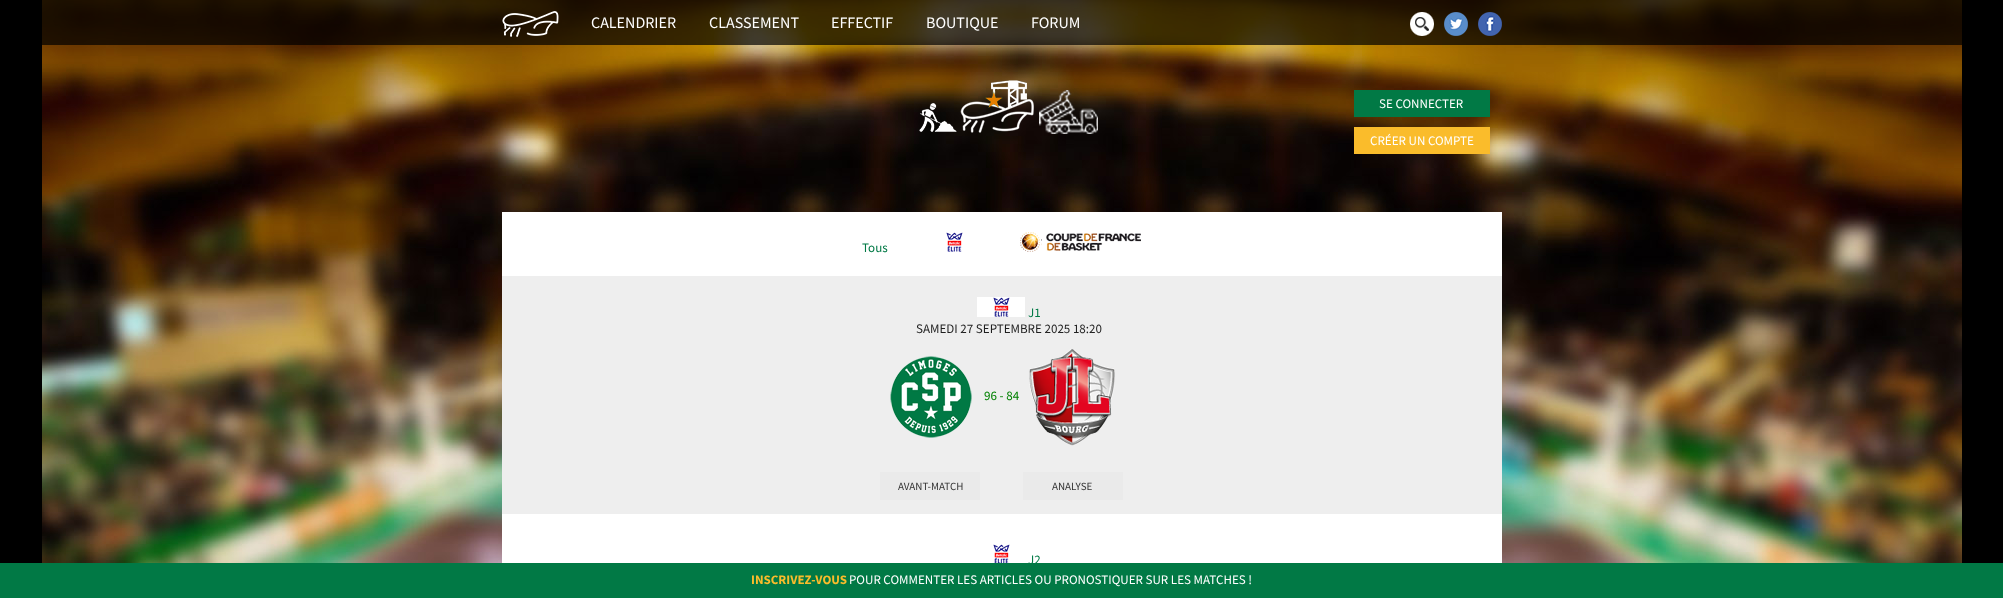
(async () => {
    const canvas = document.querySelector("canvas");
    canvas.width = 2003;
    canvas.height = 598;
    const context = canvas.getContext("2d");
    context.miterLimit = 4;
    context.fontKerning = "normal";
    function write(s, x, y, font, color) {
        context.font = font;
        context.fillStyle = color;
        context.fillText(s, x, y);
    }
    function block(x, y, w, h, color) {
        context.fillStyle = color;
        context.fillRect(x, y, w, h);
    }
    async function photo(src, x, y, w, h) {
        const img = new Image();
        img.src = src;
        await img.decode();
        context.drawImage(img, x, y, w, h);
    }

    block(0, 0, 2003, 598, "rgb(0, 0, 0)");
    await photo("media/1.png", 42, 0, 1920, 563);
    block(42, 0, 1920, 45, "rgba(0, 0, 0, 0.7)");
    await photo("media/2.png", 502, 11, 57, 26);
    write("CALENDRIER", 591, 28, "16px Source Sans Pro", "rgb(255, 255, 255)");
    write("CLASSEMENT", 709, 28, "16px Source Sans Pro", "rgb(255, 255, 255)");
    write("EFFECTIF", 831, 28, "16px Source Sans Pro", "rgb(255, 255, 255)");
    write("BOUTIQUE", 926, 28, "16px Source Sans Pro", "rgb(255, 255, 255)");
    write("FORUM", 1031, 28, "16px Source Sans Pro", "rgb(255, 255, 255)");
    await photo("media/3.png", 1410, 12, 24, 24);
    await photo("media/4.png", 1444, 12, 24, 24);
    await photo("media/5.png", 1478, 12, 24, 24);
    await photo("media/6.png", 919, 80, 179, 54);
    block(1354, 90, 136, 27, "rgb(1, 121, 69)");
    write("SE CONNECTER", 1379, 108, "13px Source Sans Pro", "rgb(255, 255, 255)");
    block(1354, 127, 136, 27, "rgb(250, 188, 43)");
    write("CRÉER UN COMPTE", 1370, 145, "13px Source Sans Pro", "rgb(255, 255, 255)");
    block(502, 212, 1000, 351, "rgb(255, 255, 255)");
    block(502, 276, 1000, 238, "rgb(238, 238, 238)");
    write("Tous", 862, 252, "13px Source Sans Pro", "rgb(1, 121, 69)");
    await photo("media/7.png", 946, 232, 17, 20);
    await photo("media/8.png", 1020, 232, 121, 20);
    await photo("media/9.png", 977, 297, 48, 20);
    write("J1", 1028, 317, "13px Source Sans Pro", "rgb(1, 121, 69)");
    write("SAMEDI 27 SEPTEMBRE 2025 18:20", 916, 333, "13px Source Sans Pro", "rgb(31, 31, 31)");
    await photo("media/10.png", 890, 356, 82, 82);
    write("96 - 84", 984, 400, "13px Source Sans Pro", "rgb(0, 128, 0)");
    await photo("media/11.png", 1029, 349, 86, 97);
    block(880, 472, 100, 28, "rgb(234, 234, 234)");
    write("AVANT-MATCH", 898, 490, "11px Source Sans Pro", "rgb(51, 51, 51)");
    block(1023, 472, 100, 28, "rgb(234, 234, 234)");
    write("ANALYSE", 1052, 490, "11px Source Sans Pro", "rgb(51, 51, 51)");
    await photo("media/12.png", 993, 544, 17, 19);
    write("J2", 1028, 564, "13px Source Sans Pro", "rgb(1, 121, 69)");
    block(0, 563, 2003, 35, "rgb(1, 121, 69)");
    write("INSCRIVEZ-VOUS", 751, 584, "bold 13px Source Sans Pro", "rgb(250, 188, 43)");
    write("POUR COMMENTER LES ARTICLES OU PRONOSTIQUER SUR LES MATCHES !", 849, 584, "13px Source Sans Pro", "rgb(255, 255, 255)");
})();
